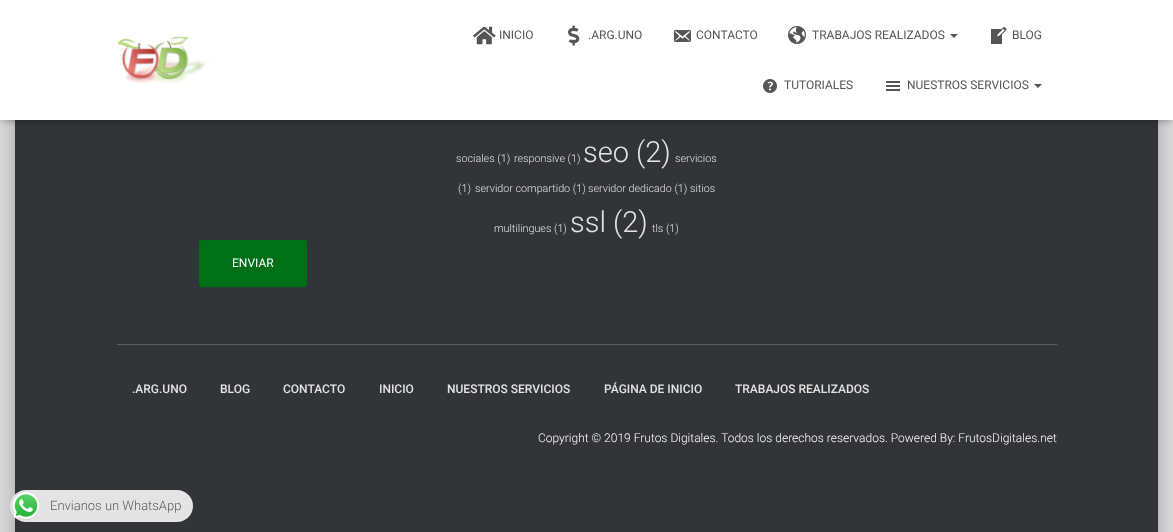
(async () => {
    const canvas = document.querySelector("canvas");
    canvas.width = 1173;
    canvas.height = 532;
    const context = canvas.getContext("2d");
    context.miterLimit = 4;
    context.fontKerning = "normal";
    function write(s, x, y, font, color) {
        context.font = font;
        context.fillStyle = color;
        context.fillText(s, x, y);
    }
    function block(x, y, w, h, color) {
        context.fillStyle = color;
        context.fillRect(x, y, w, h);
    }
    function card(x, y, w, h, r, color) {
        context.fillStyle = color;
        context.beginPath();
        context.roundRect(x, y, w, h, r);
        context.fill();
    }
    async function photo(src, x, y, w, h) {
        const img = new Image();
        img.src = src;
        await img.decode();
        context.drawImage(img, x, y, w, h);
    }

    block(0, 0, 1173, 532, "rgb(229, 229, 229)");
    context.fillStyle = "rgba(0, 0, 0, 0.2)";
    context.filter = "blur(5px)";
    context.beginPath();
    context.roundRect(20, -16, 1133, 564, 1);
    context.fill();
    context.filter = "none";
    context.fillStyle = "rgba(0, 0, 0, 0.12)";
    context.filter = "blur(15px)";
    context.beginPath();
    context.roundRect(10, -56, 1153, 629, 11);
    context.fill();
    context.filter = "none";
    context.fillStyle = "rgba(0, 0, 0, 0.14)";
    context.filter = "blur(12px)";
    context.beginPath();
    context.roundRect(13, -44, 1147, 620, 8);
    context.fill();
    context.filter = "none";
    block(15, 120, 1143, 412, "rgb(50, 52, 55)");
    context.fillStyle = "rgba(0, 0, 0, 0.1)";
    context.filter = "blur(2.5px)";
    context.beginPath();
    context.rect(2, 6, 1169, 116);
    context.fill();
    context.filter = "none";
    context.fillStyle = "rgba(0, 0, 0, 0.12)";
    context.filter = "blur(5px)";
    context.beginPath();
    context.rect(0, 1, 1173, 120);
    context.fill();
    context.filter = "none";
    context.fillStyle = "rgba(0, 0, 0, 0.42)";
    context.filter = "blur(5px)";
    context.beginPath();
    context.rect(6, 7, 1161, 108);
    context.fill();
    context.filter = "none";
    block(0, 0, 1173, 120, "rgb(255, 255, 255)");
    await photo("media/1.png", 117, 36, 96, 48);
    await photo("media/2.png", 473, 26, 23, 19);
    write("INICIO", 499, 39, "12px Roboto", "rgb(85, 85, 85)");
    await photo("media/3.png", 568, 25, 12, 21);
    write(".ARG.UNO", 588, 39, "12px Roboto", "rgb(85, 85, 85)");
    await photo("media/4.png", 674, 30, 17, 12);
    write("CONTACTO", 696, 39, "12px Roboto", "rgb(85, 85, 85)");
    await photo("media/5.png", 788, 26, 18, 18);
    write("TRABAJOS REALIZADOS", 812, 39, "12px Roboto", "rgb(85, 85, 85)");
    context.beginPath();
    context.moveTo(950, 34);
    context.lineTo(958, 34);
    context.lineTo(954, 38);
    context.closePath();
    context.fill();
    await photo("media/6.png", 991, 26, 16, 18);
    write("BLOG", 1012, 39, "12px Roboto", "rgb(85, 85, 85)");
    await photo("media/7.png", 763, 79, 14, 14);
    write("TUTORIALES", 784, 89, "12px Roboto", "rgb(85, 85, 85)");
    await photo("media/8.png", 886, 81, 14, 10);
    write("NUESTROS SERVICIOS", 907, 89, "12px Roboto", "rgb(85, 85, 85)");
    context.beginPath();
    context.moveTo(1034, 84);
    context.lineTo(1042, 84);
    context.lineTo(1038, 88);
    context.closePath();
    context.fill();
    write("sociales (1)", 456, 162, "300 10.75px Roboto", "rgb(226, 227, 227)");
    write("responsive (1)", 514, 162, "300 10.75px Roboto", "rgb(226, 227, 227)");
    write("seo (2)", 583, 162, "300 29px Roboto", "rgb(226, 227, 227)");
    write("servicios", 675, 162, "300 10.75px Roboto", "rgb(226, 227, 227)");
    write("(1)", 458, 192, "300 10.75px Roboto", "rgb(226, 227, 227)");
    write("servidor compartido (1)", 475, 192, "300 10.75px Roboto", "rgb(226, 227, 227)");
    write("servidor dedicado (1)", 588, 192, "300 10.75px Roboto", "rgb(226, 227, 227)");
    write("sitios", 690, 192, "300 10.75px Roboto", "rgb(226, 227, 227)");
    write("multilingues (1)", 494, 232, "300 10.75px Roboto", "rgb(226, 227, 227)");
    write("ssl (2)", 570, 232, "300 29px Roboto", "rgb(226, 227, 227)");
    write("tls (1)", 652, 232, "300 10.75px Roboto", "rgb(226, 227, 227)");
    context.fillStyle = "rgba(0, 112, 24, 0.2)";
    context.filter = "blur(0.5px)";
    context.beginPath();
    context.roundRect(201, 245, 104, 43, 1);
    context.fill();
    context.filter = "none";
    card(199, 240, 108, 47, 3, "rgb(0, 112, 24)");
    write("ENVIAR", 232, 267, "12px Roboto", "rgb(255, 255, 255)");
    block(117, 344, 940, 1, "rgb(91, 93, 95)");
    write(".ARG.UNO", 132, 393, "500 12px Roboto", "rgb(226, 227, 227)");
    write("BLOG", 220, 393, "500 12px Roboto", "rgb(226, 227, 227)");
    write("CONTACTO", 283, 393, "500 12px Roboto", "rgb(226, 227, 227)");
    write("INICIO", 379, 393, "500 12px Roboto", "rgb(226, 227, 227)");
    write("NUESTROS SERVICIOS", 447, 393, "500 12px Roboto", "rgb(226, 227, 227)");
    write("PÁGINA DE INICIO", 604, 393, "500 12px Roboto", "rgb(226, 227, 227)");
    write("TRABAJOS REALIZADOS", 735, 393, "500 12px Roboto", "rgb(226, 227, 227)");
    write("Copyright © 2019 Frutos Digitales. Todos los derechos reservados. Powered By: FrutosDigitales.net", 538, 442, "300 12px Roboto", "rgb(255, 255, 255)");
    card(10, 490, 183, 32, 16, "rgb(228, 228, 228)");
    await photo("media/9.png", 12, 492, 28, 28);
    write("Envianos un WhatsApp", 50, 510, "300 13px Roboto", "rgb(91, 91, 91)");
})();
